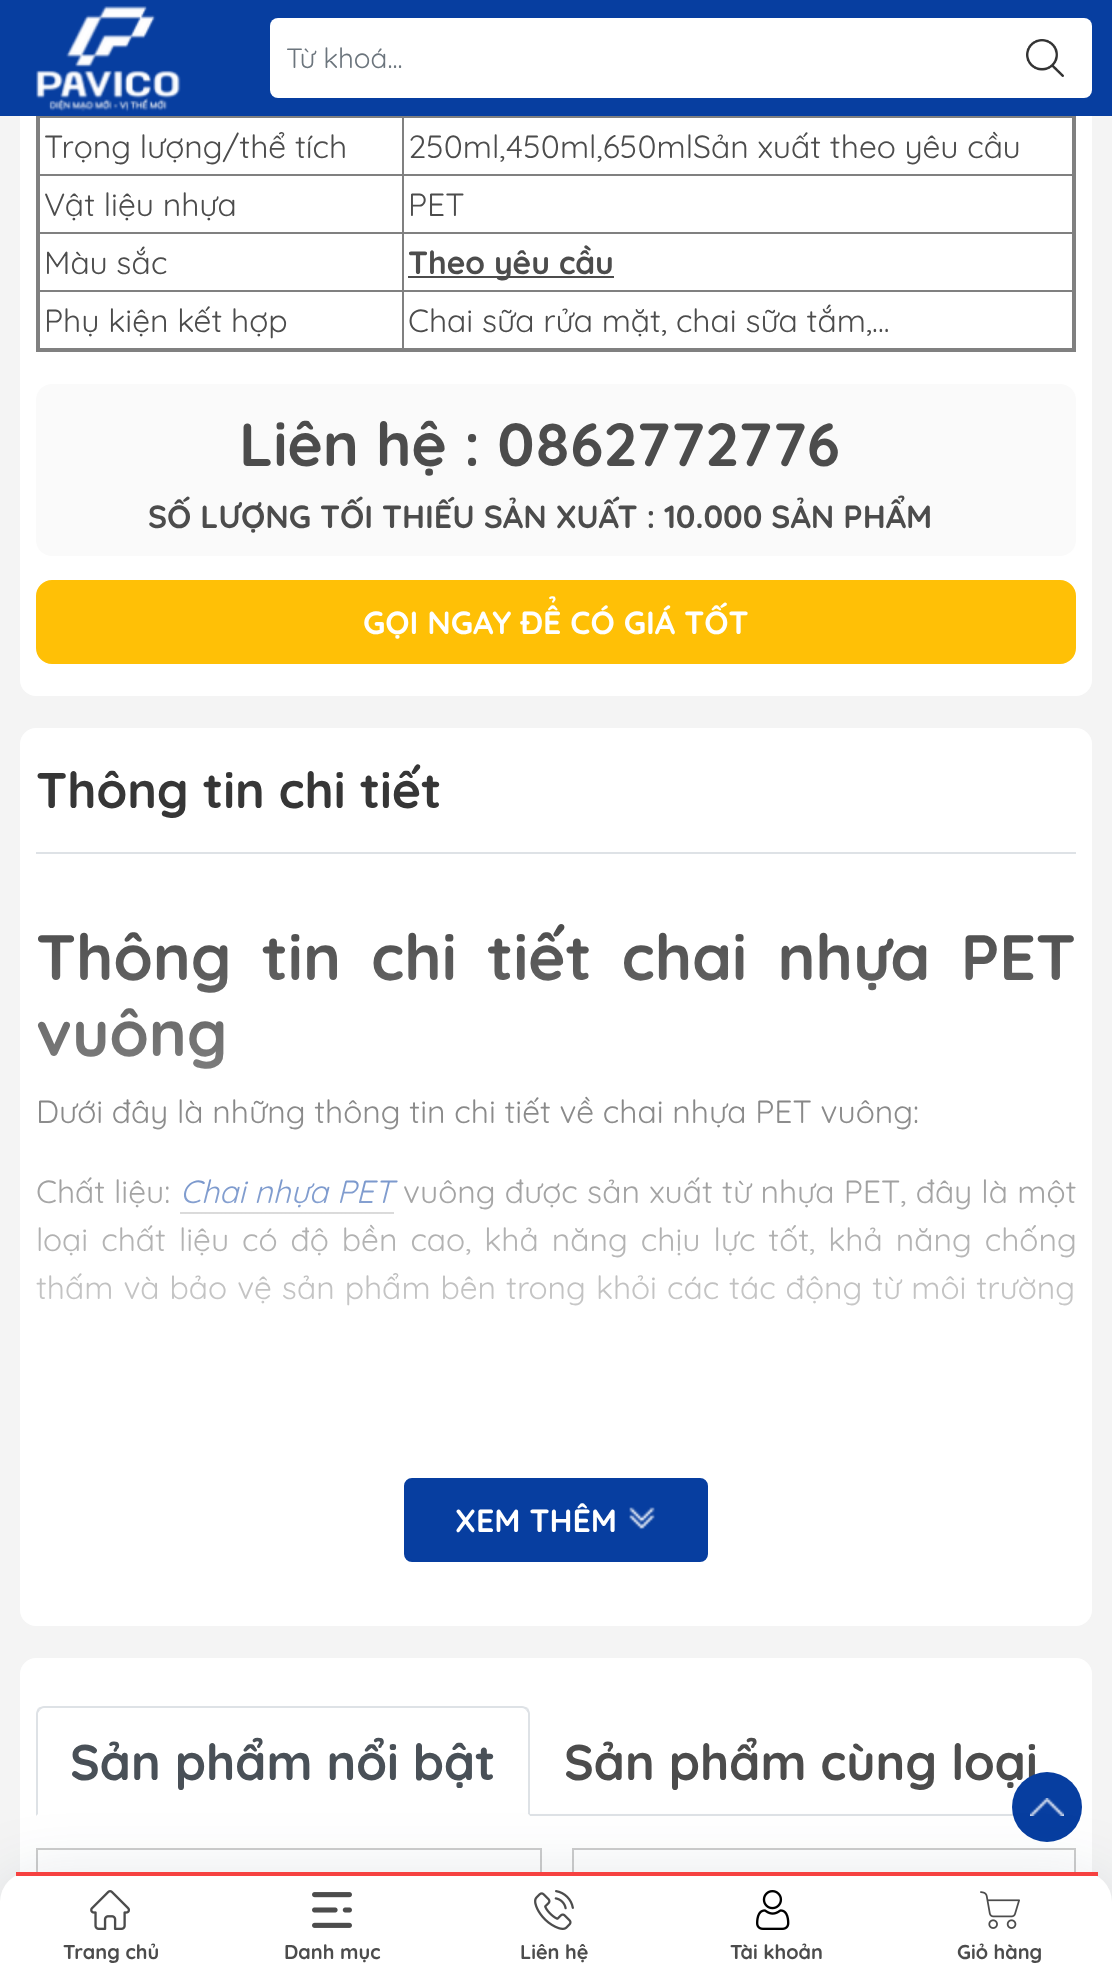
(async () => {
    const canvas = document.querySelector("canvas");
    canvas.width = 1112;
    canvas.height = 1972;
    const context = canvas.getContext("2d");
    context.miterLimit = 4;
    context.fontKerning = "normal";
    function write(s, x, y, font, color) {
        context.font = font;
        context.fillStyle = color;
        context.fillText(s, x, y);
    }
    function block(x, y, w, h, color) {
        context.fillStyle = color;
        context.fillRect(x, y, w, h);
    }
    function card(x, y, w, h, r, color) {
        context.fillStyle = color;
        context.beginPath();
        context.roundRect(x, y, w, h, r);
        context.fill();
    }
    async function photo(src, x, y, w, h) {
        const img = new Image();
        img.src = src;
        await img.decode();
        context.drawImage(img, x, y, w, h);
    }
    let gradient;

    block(0, 0, 1112, 1972, "rgb(244, 244, 244)");
    card(20, -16, 1072, 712, 16, "rgb(255, 255, 255)");
    block(0, 0, 1112, 116, "rgb(7, 62, 160)");
    await photo("media/1.png", 36, 6, 145, 106);
    card(270, 18, 822, 80, 8, "rgb(255, 255, 255)");
    write("Từ khoá...", 286, 68, "28px Quicksand", "rgb(108, 117, 125)");
    await photo("media/2.png", 1026, 39, 38, 38);
    block(402, 116, 674, 2, "rgb(128, 128, 128)");
    block(402, 174, 674, 2, "rgb(128, 128, 128)");
    block(402, 232, 674, 2, "rgb(128, 128, 128)");
    block(402, 290, 674, 2, "rgb(128, 128, 128)");
    block(1072, 116, 4, 236, "rgb(128, 128, 128)");
    block(402, 290, 2, 62, "rgb(128, 128, 128)");
    block(36, 348, 1040, 4, "rgb(128, 128, 128)");
    block(38, 290, 366, 2, "rgb(128, 128, 128)");
    block(402, 232, 2, 60, "rgb(128, 128, 128)");
    block(38, 232, 366, 2, "rgb(128, 128, 128)");
    block(402, 174, 2, 60, "rgb(128, 128, 128)");
    block(38, 174, 366, 2, "rgb(128, 128, 128)");
    block(402, 116, 2, 60, "rgb(128, 128, 128)");
    block(38, 116, 366, 2, "rgb(128, 128, 128)");
    block(36, 116, 4, 236, "rgb(128, 128, 128)");
    write("Trọng lượng/thể tích", 44, 158, "32px Quicksand", "rgb(76, 76, 76)");
    write("250ml,450ml,650mlSản xuất theo yêu cầu", 408, 158, "32px Quicksand", "rgb(76, 76, 76)");
    write("Vật liệu nhựa", 44, 216, "32px Quicksand", "rgb(76, 76, 76)");
    write("PET", 408, 216, "32px Quicksand", "rgb(76, 76, 76)");
    write("Màu sắc", 44, 274, "32px Quicksand", "rgb(76, 76, 76)");
    block(408, 276, 206, 2, "rgb(76, 76, 76)");
    write("Theo yêu cầu", 408, 274, "bold 32px Quicksand", "rgb(76, 76, 76)");
    write("Phụ kiện kết hợp", 44, 332, "32px Quicksand", "rgb(76, 76, 76)");
    write("Chai sữa rửa mặt, chai sữa tắm,...", 408, 332, "32px Quicksand", "rgb(76, 76, 76)");
    card(36, 384, 1040, 172, 16, "rgb(250, 250, 250)");
    write("Liên hệ : 0862772776", 239, 466, "bold 60.75px Quicksand", "rgb(76, 76, 76)");
    write("SỐ LƯỢNG TỐI THIẾU SẢN XUẤT : 10.000 SẢN PHẨM", 148, 528, "bold 32px Quicksand", "rgb(76, 76, 76)");
    context.fillStyle = "rgb(255, 192, 6)";
    context.beginPath();
    context.roundRect(37, 581, 1038, 82, 15);
    context.fill();
    context.strokeStyle = "rgb(255, 192, 6)";
    context.lineWidth = 2;
    context.stroke();
    write("GỌI NGAY ĐỂ CÓ GIÁ TỐT", 363, 634, "bold 32px Quicksand", "rgb(255, 255, 255)");
    card(20, 728, 1072, 898, 16, "rgb(255, 255, 255)");
    block(36, 852, 1040, 2, "rgb(222, 226, 230)");
    write("Thông tin chi tiết", 36, 808, "bold 50px Quicksand", "rgb(54, 54, 54)");
    context.wordSpacing = "12.25px";
    write("Thông tin chi tiết chai nhựa PET", 36, 980, "bold 64px Quicksand", "rgb(76, 76, 76)");
    context.wordSpacing = "0px";
    write("vuông", 36, 1056, "bold 64px Quicksand", "rgb(76, 76, 76)");
    write("Dưới đây là những thông tin chi tiết về chai nhựa PET vuông:", 36, 1123, "32px Quicksand", "rgb(76, 76, 76)");
    write("Chất liệu:", 36, 1203, "32px Quicksand", "rgb(76, 76, 76)");
    write("Chai nhựa PET", 180, 1203, "italic 32px Quicksand", "rgb(7, 62, 160)");
    block(180, 1212, 214, 2, "rgb(178, 178, 178)");
    context.wordSpacing = "0.5px";
    write("vuông được sản xuất từ nhựa PET, đây là một", 403, 1203, "32px Quicksand", "rgb(76, 76, 76)");
    context.wordSpacing = "4.25px";
    write("loại chất liệu có độ bền cao, khả năng chịu lực tốt, khả năng chống", 36, 1251, "32px Quicksand", "rgb(76, 76, 76)");
    context.wordSpacing = "1.25px";
    write("thấm và bảo vệ sản phẩm bên trong khỏi các tác động từ môi trường", 36, 1299, "32px Quicksand", "rgb(76, 76, 76)");
    gradient = context.createLinearGradient(556, 918, 556, 1478);
    gradient.addColorStop(0, "rgba(255, 255, 255, 0)");
    gradient.addColorStop(1, "rgb(255, 255, 255)");
    context.fillStyle = gradient;
    context.fillRect(36, 930, 1039, 376);
    context.fillStyle = "rgb(7, 62, 160)";
    context.beginPath();
    context.roundRect(405, 1479, 302, 82, 7);
    context.fill();
    context.strokeStyle = "rgb(7, 62, 160)";
    context.stroke();
    context.wordSpacing = "0px";
    write("XEM THÊM", 455, 1532, "bold 32px Quicksand", "rgb(255, 255, 255)");
    await photo("media/3.png", 629, 1507, 26, 23);
    card(20, 1658, 1072, 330, 16, "rgb(255, 255, 255)");
    block(530, 1814, 484, 2, "rgb(222, 226, 230)");
    context.beginPath();
    context.moveTo(44, 1706);
    context.bezierCurveTo(42, 1706, 40, 1707, 38, 1708);
    context.lineTo(40, 1710);
    context.bezierCurveTo(41, 1709, 42, 1708, 44, 1708);
    context.lineTo(522, 1708);
    context.bezierCurveTo(524, 1708, 525, 1709, 526, 1710);
    context.lineTo(528, 1708);
    context.bezierCurveTo(526, 1707, 524, 1706, 522, 1706);
    context.closePath();
    context.fill();
    context.beginPath();
    context.moveTo(530, 1816);
    context.lineTo(530, 1714);
    context.bezierCurveTo(530, 1712, 529, 1710, 528, 1708);
    context.lineTo(526, 1710);
    context.lineTo(528, 1713);
    context.lineTo(528, 1814);
    context.closePath();
    context.fill();
    context.fillStyle = "rgb(255, 255, 255)";
    context.beginPath();
    context.moveTo(530, 1816);
    context.lineTo(528, 1814);
    context.lineTo(38, 1814);
    context.lineTo(36, 1816);
    context.closePath();
    context.fill();
    context.fillStyle = "rgb(222, 226, 230)";
    context.beginPath();
    context.moveTo(36, 1816);
    context.lineTo(38, 1814);
    context.lineTo(38, 1713);
    context.lineTo(40, 1710);
    context.lineTo(38, 1708);
    context.bezierCurveTo(37, 1710, 36, 1712, 36, 1714);
    context.closePath();
    context.fill();
    write("Sản phẩm nổi bật", 70, 1780, "bold 50px Quicksand", "rgb(73, 80, 87)");
    write("Sản phẩm cùng loại", 564, 1780, "bold 50px Quicksand", "rgb(76, 76, 76)");
    context.strokeStyle = "rgb(204, 204, 204)";
    context.strokeRect(37, 1849, 504, 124);
    context.strokeRect(573, 1849, 502, 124);
    context.fillStyle = "rgb(7, 62, 160)";
    context.beginPath();
    context.arc(1047, 1807, 35, 0, Math.PI * 2);
    context.fill();
    await photo("media/4.png", 1030, 1798, 34, 18);
    context.fillStyle = "rgba(16, 42, 67, 0.15)";
    context.filter = "blur(36px)";
    context.beginPath();
    context.roundRect(0, 1886, 1112, 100, 30);
    context.fill();
    context.filter = "none";
    context.fillStyle = "rgb(255, 255, 255)";
    context.beginPath();
    context.roundRect(0, 1872, 1112, 100, [30, 30, 0, 0]);
    context.fill();
    block(16, 1872, 1082, 4, "rgb(246, 65, 64)");
    await photo("media/5.png", 90, 1890, 40, 40);
    write("Trang chủ", 63, 1959, "bold 20px Quicksand", "rgb(76, 76, 76)");
    await photo("media/6.png", 312, 1892, 40, 36);
    write("Danh mục", 284, 1959, "bold 20px Quicksand", "rgb(76, 76, 76)");
    await photo("media/7.png", 534, 1890, 40, 40);
    write("Liên hệ", 520, 1959, "bold 20px Quicksand", "rgb(76, 76, 76)");
    await photo("media/8.png", 756, 1890, 34, 40);
    write("Tài khoản", 730, 1959, "bold 20px Quicksand", "rgb(76, 76, 76)");
    await photo("media/9.png", 980, 1891, 40, 38);
    write("Giỏ hàng", 957, 1959, "bold 20px Quicksand", "rgb(76, 76, 76)");
})();
